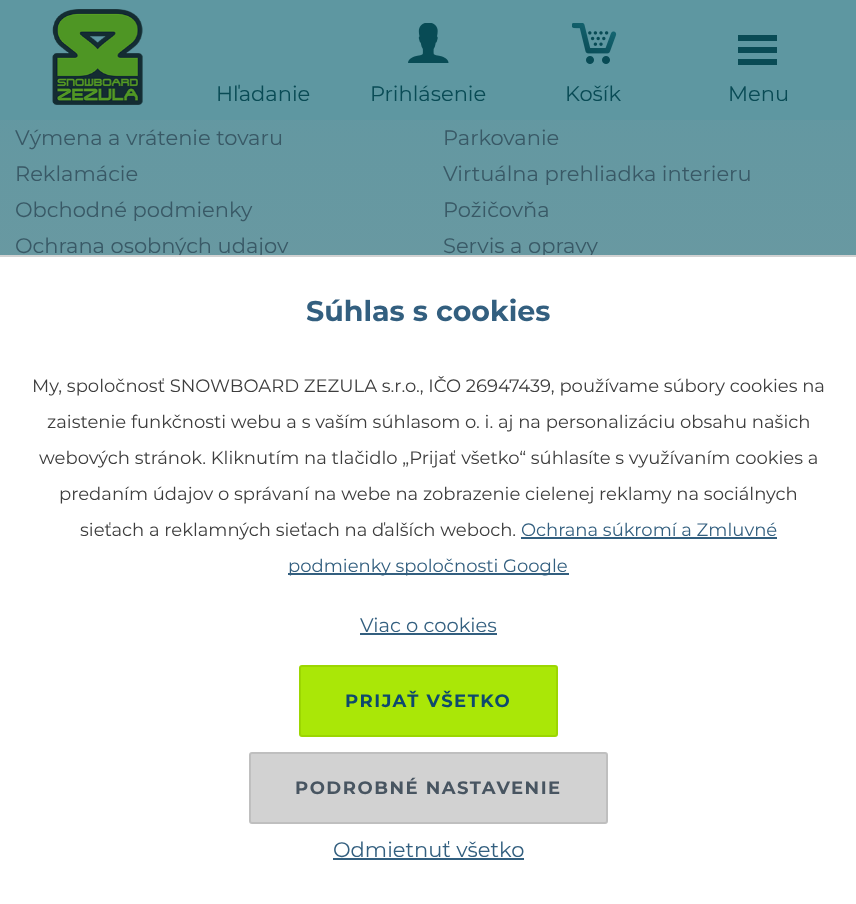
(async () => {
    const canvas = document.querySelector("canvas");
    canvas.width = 856;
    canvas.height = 904;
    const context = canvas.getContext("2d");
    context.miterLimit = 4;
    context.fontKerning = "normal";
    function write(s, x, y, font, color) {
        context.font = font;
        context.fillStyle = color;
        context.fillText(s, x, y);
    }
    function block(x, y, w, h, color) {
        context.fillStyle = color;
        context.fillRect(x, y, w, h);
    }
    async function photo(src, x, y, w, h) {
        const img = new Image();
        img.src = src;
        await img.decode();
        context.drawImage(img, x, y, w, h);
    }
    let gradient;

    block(0, 0, 856, 904, "rgb(255, 255, 255)");
    block(0, 0, 856, 120, "rgb(94, 151, 161)");
    await photo("media/1.png", 52, 9, 91, 96);
    write("Hľadanie", 216, 101, "21px Montserrat", "rgb(9, 75, 85)");
    await photo("media/2.png", 408, 23, 41, 40);
    write("Prihlásenie", 370, 101, "21px Montserrat", "rgb(9, 75, 85)");
    await photo("media/3.png", 572, 23, 45, 41);
    write("Košík", 565, 101, "21px Montserrat", "rgb(9, 75, 85)");
    block(738, 47, 39, 6, "rgb(9, 75, 85)");
    block(738, 35, 39, 6, "rgb(9, 75, 85)");
    block(738, 59, 39, 6, "rgb(9, 75, 85)");
    write("Menu", 728, 101, "21px Montserrat", "rgb(9, 75, 85)");
    gradient = context.createLinearGradient(428, -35, 428, 701);
    gradient.addColorStop(0, "rgb(94, 151, 161)");
    gradient.addColorStop(1, "rgb(120, 155, 162)");
    context.fillStyle = gradient;
    context.fillRect(0, 120, 856, 135);
    write("Výmena a vrátenie tovaru", 15, 145, "21px Montserrat", "rgb(57, 89, 102)");
    write("Reklamácie", 15, 181, "21px Montserrat", "rgb(57, 89, 102)");
    write("Obchodné podmienky", 15, 217, "21px Montserrat", "rgb(57, 89, 102)");
    write("Ochrana osobných udajov", 15, 253, "21px Montserrat", "rgb(57, 89, 102)");
    write("Parkovanie", 443, 145, "21px Montserrat", "rgb(57, 89, 102)");
    write("Virtuálna prehliadka interieru", 443, 181, "21px Montserrat", "rgb(57, 89, 102)");
    write("Požičovňa", 443, 217, "21px Montserrat", "rgb(57, 89, 102)");
    write("Servis a opravy", 443, 253, "21px Montserrat", "rgb(57, 89, 102)");
    block(176, 257, 414, 1, "rgb(255, 255, 255)");
    block(0, 255, 856, 2, "rgb(210, 210, 210)");
    write("Súhlas s cookies", 306, 321, "bold 28.5px Montserrat", "rgb(51, 95, 127)");
    write("My, spoločnosť SNOWBOARD ZEZULA s.r.o., IČO 26947439, používame súbory cookies na", 32, 392, "18px Montserrat", "rgb(61, 61, 61)");
    write("zaistenie funkčnosti webu a s vaším súhlasom o. i. aj na personalizáciu obsahu našich", 47, 428, "18px Montserrat", "rgb(61, 61, 61)");
    write("webových stránok. Kliknutím na tlačidlo „Prijať všetko“ súhlasíte s využívaním cookies a", 39, 464, "18px Montserrat", "rgb(61, 61, 61)");
    write("predaním údajov o správaní na webe na zobrazenie cielenej reklamy na sociálnych", 59, 500, "18px Montserrat", "rgb(61, 61, 61)");
    write("sieťach a reklamných sieťach na ďalších weboch.", 80, 536, "18px Montserrat", "rgb(61, 61, 61)");
    write("Ochrana súkromí a Zmluvné", 521, 536, "18px Montserrat", "rgb(51, 95, 127)");
    block(521, 537, 256, 2, "rgb(51, 95, 127)");
    block(288, 573, 281, 2, "rgb(51, 95, 127)");
    write("podmienky spoločnosti Google", 288, 572, "18px Montserrat", "rgb(51, 95, 127)");
    write("Viac o cookies", 360, 632, "19.5px Montserrat", "rgb(51, 95, 127)");
    block(360, 633, 137, 2, "rgb(51, 95, 127)");
    context.fillStyle = "rgb(170, 231, 7)";
    context.beginPath();
    context.roundRect(300, 666, 257, 70, 2);
    context.fill();
    context.strokeStyle = "rgb(156, 214, 1)";
    context.lineWidth = 2;
    context.stroke();
    context.letterSpacing = "1.5px";
    write("PRIJAŤ VŠETKO", 345, 707, "bold 18px Montserrat", "rgb(14, 73, 109)");
    context.fillStyle = "rgb(210, 210, 210)";
    context.beginPath();
    context.roundRect(250, 753, 357, 70, 2);
    context.fill();
    context.strokeStyle = "rgb(191, 191, 191)";
    context.stroke();
    write("PODROBNÉ NASTAVENIE", 295, 794, "bold 18px Montserrat", "rgb(72, 85, 97)");
    context.letterSpacing = "0px";
    write("Odmietnuť všetko", 333, 857, "21px Montserrat", "rgb(51, 95, 127)");
    block(333, 858, 191, 2, "rgb(51, 95, 127)");
})();
